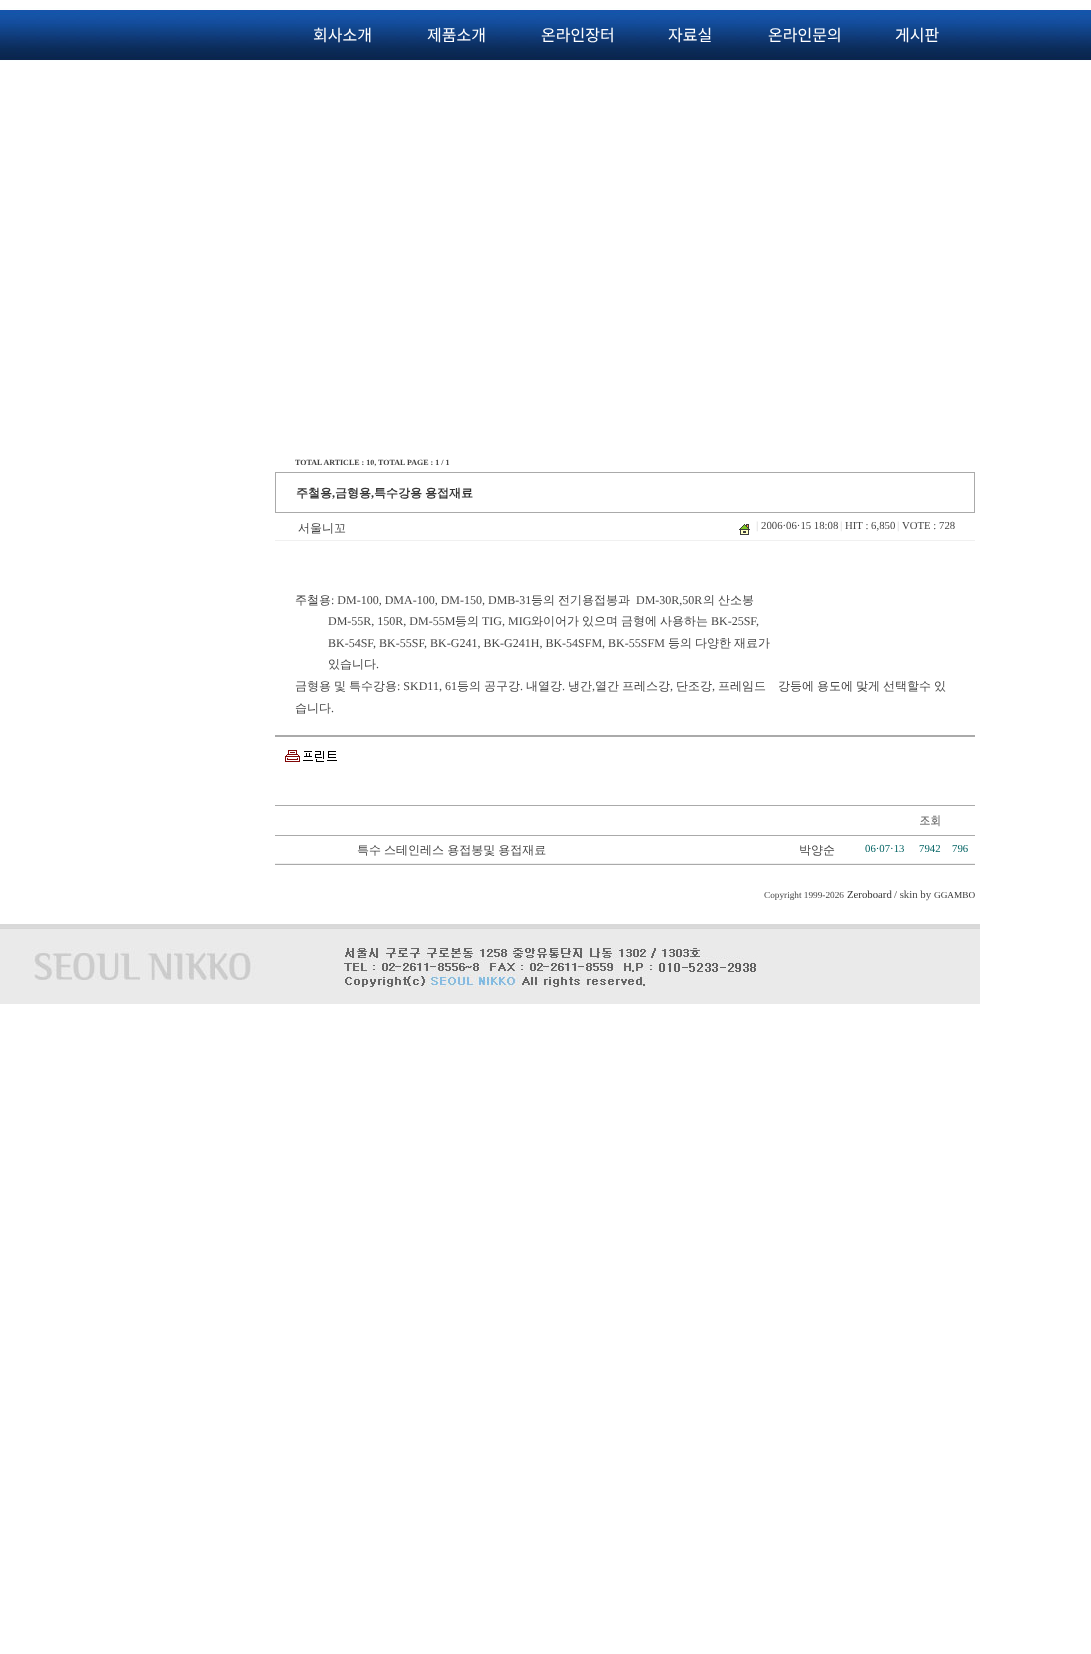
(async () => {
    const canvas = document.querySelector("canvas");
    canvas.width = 1091;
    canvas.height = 1654;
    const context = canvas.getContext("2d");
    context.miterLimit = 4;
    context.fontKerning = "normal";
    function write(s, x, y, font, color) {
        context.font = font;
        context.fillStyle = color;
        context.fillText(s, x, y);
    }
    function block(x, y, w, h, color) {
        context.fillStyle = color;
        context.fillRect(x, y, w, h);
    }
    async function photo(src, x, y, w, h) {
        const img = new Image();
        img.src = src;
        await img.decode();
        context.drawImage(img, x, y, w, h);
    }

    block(0, 0, 1091, 1654, "rgb(255, 255, 255)");
    await photo("media/1.png", 0, 8, 1091, 53);
    write("회사소개", 313, 41, "16px Noto Sans KR", "rgb(255, 255, 255)");
    write("제품소개", 427, 41, "16px Noto Sans KR", "rgb(255, 255, 255)");
    write("온라인장터", 541, 41, "16px Noto Sans KR", "rgb(255, 255, 255)");
    write("자료실", 668, 41, "16px Noto Sans KR", "rgb(255, 255, 255)");
    write("온라인문의", 768, 41, "16px Noto Sans KR", "rgb(255, 255, 255)");
    write("게시판", 895, 41, "16px Noto Sans KR", "rgb(255, 255, 255)");
    write("TOTAL ARTICLE : 10, TOTAL PAGE : 1 / 1", 295, 465, "bold 8px Liberation Serif", "rgb(70, 70, 70)");
    block(275, 472, 700, 1, "rgb(170, 170, 170)");
    block(275, 735, 700, 2, "rgb(170, 170, 170)");
    block(974, 473, 1, 40, "rgb(170, 170, 170)");
    block(275, 512, 700, 1, "rgb(170, 170, 170)");
    block(275, 473, 1, 40, "rgb(170, 170, 170)");
    write("주철용", 296, 497, "bold 12px WenQuanYi Zen Hei", "rgb(51, 51, 51)");
    write(",", 332, 497, "bold 12px Liberation Serif", "rgb(51, 51, 51)");
    write("금형용", 335, 497, "bold 12px WenQuanYi Zen Hei", "rgb(51, 51, 51)");
    write(",", 371, 497, "bold 12px Liberation Serif", "rgb(51, 51, 51)");
    context.wordSpacing = "-0.5px";
    write("특수강용 용접재료", 374, 497, "bold 12px WenQuanYi Zen Hei", "rgb(51, 51, 51)");
    block(275, 540, 700, 1, "rgb(240, 240, 240)");
    context.wordSpacing = "0px";
    write("서울니꼬", 298, 532, "500 12px WenQuanYi Zen Hei", "rgb(70, 70, 70)");
    await photo("media/2.png", 739, 524, 11, 11);
    write("|", 756, 529, "bold 10.75px Liberation Serif", "rgb(221, 221, 221)");
    write("2006·06·15 18:08", 761, 529, "10.75px Liberation Serif", "rgb(70, 70, 70)");
    write("|", 840, 529, "bold 10.75px Liberation Serif", "rgb(221, 221, 221)");
    write("HIT : 6,850", 845, 529, "10.75px Liberation Serif", "rgb(70, 70, 70)");
    write("|", 897, 529, "bold 10.75px Liberation Serif", "rgb(221, 221, 221)");
    write("VOTE : 728", 902, 529, "10.75px Liberation Serif", "rgb(70, 70, 70)");
    write("주철용", 295, 604, "500 12px WenQuanYi Zen Hei", "rgb(70, 70, 70)");
    write(": DM-100, DMA-100, DM-150, DMB-31", 331, 604, "12px Liberation Serif", "rgb(70, 70, 70)");
    write("등의", 531, 604, "500 12px WenQuanYi Zen Hei", "rgb(70, 70, 70)");
    write("전기용접봉과", 558, 604, "500 12px WenQuanYi Zen Hei", "rgb(70, 70, 70)");
    write("DM-30R,50R", 636, 604, "12px Liberation Serif", "rgb(70, 70, 70)");
    write("의", 703, 604, "500 12px WenQuanYi Zen Hei", "rgb(70, 70, 70)");
    write("산소봉", 718, 604, "500 12px WenQuanYi Zen Hei", "rgb(70, 70, 70)");
    write("DM-55R, 150R, DM-55M", 328, 625, "12px Liberation Serif", "rgb(70, 70, 70)");
    write("등의", 455, 625, "500 12px WenQuanYi Zen Hei", "rgb(70, 70, 70)");
    write("TIG, MIG", 482, 625, "12px Liberation Serif", "rgb(70, 70, 70)");
    write("와이어가", 531, 625, "500 12px WenQuanYi Zen Hei", "rgb(70, 70, 70)");
    write("있으며", 582, 625, "500 12px WenQuanYi Zen Hei", "rgb(70, 70, 70)");
    write("금형에", 621, 625, "500 12px WenQuanYi Zen Hei", "rgb(70, 70, 70)");
    write("사용하는", 660, 625, "500 12px WenQuanYi Zen Hei", "rgb(70, 70, 70)");
    write("BK-25SF,", 711, 625, "12px Liberation Serif", "rgb(70, 70, 70)");
    write("BK-54SF, BK-55SF, BK-G241, BK-G241H, BK-54SFM, BK-55SFM", 328, 647, "12px Liberation Serif", "rgb(70, 70, 70)");
    write("등의", 668, 647, "500 12px WenQuanYi Zen Hei", "rgb(70, 70, 70)");
    write("다양한", 695, 647, "500 12px WenQuanYi Zen Hei", "rgb(70, 70, 70)");
    write("재료가", 734, 647, "500 12px WenQuanYi Zen Hei", "rgb(70, 70, 70)");
    write("있습니다", 328, 668, "500 12px WenQuanYi Zen Hei", "rgb(70, 70, 70)");
    write(".", 376, 668, "12px Liberation Serif", "rgb(70, 70, 70)");
    write("금형용", 295, 690, "500 12px WenQuanYi Zen Hei", "rgb(70, 70, 70)");
    write("및", 334, 690, "500 12px WenQuanYi Zen Hei", "rgb(70, 70, 70)");
    write("특수강용", 349, 690, "500 12px WenQuanYi Zen Hei", "rgb(70, 70, 70)");
    write(": SKD11, 61", 397, 690, "12px Liberation Serif", "rgb(70, 70, 70)");
    write("등의", 457, 690, "500 12px WenQuanYi Zen Hei", "rgb(70, 70, 70)");
    write("공구강", 484, 690, "500 12px WenQuanYi Zen Hei", "rgb(70, 70, 70)");
    write(".", 520, 690, "12px Liberation Serif", "rgb(70, 70, 70)");
    write("내열강", 526, 690, "500 12px WenQuanYi Zen Hei", "rgb(70, 70, 70)");
    write(".", 562, 690, "12px Liberation Serif", "rgb(70, 70, 70)");
    write("냉간", 568, 690, "500 12px WenQuanYi Zen Hei", "rgb(70, 70, 70)");
    write(",", 592, 690, "12px Liberation Serif", "rgb(70, 70, 70)");
    write("열간", 595, 690, "500 12px WenQuanYi Zen Hei", "rgb(70, 70, 70)");
    write("프레스강", 622, 690, "500 12px WenQuanYi Zen Hei", "rgb(70, 70, 70)");
    write(",", 670, 690, "12px Liberation Serif", "rgb(70, 70, 70)");
    write("단조강", 676, 690, "500 12px WenQuanYi Zen Hei", "rgb(70, 70, 70)");
    write(",", 712, 690, "12px Liberation Serif", "rgb(70, 70, 70)");
    write("프레임드", 718, 690, "500 12px WenQuanYi Zen Hei", "rgb(70, 70, 70)");
    write("강등에", 778, 690, "500 12px WenQuanYi Zen Hei", "rgb(70, 70, 70)");
    write("용도에", 817, 690, "500 12px WenQuanYi Zen Hei", "rgb(70, 70, 70)");
    write("맞게", 856, 690, "500 12px WenQuanYi Zen Hei", "rgb(70, 70, 70)");
    write("선택할수", 883, 690, "500 12px WenQuanYi Zen Hei", "rgb(70, 70, 70)");
    write("있", 934, 690, "500 12px WenQuanYi Zen Hei", "rgb(70, 70, 70)");
    write("습니다", 295, 712, "500 12px WenQuanYi Zen Hei", "rgb(70, 70, 70)");
    write(".", 331, 712, "12px Liberation Serif", "rgb(70, 70, 70)");
    await photo("media/3.png", 285, 750, 52, 12);
    block(275, 805, 700, 1, "rgb(170, 170, 170)");
    block(275, 864, 700, 1, "rgb(170, 170, 170)");
    await photo("media/4.png", 920, 815, 20, 12);
    block(275, 835, 700, 1, "rgb(170, 170, 170)");
    context.wordSpacing = "-0.5px";
    write("특수 스테인레스 용접봉및 용접재료", 357, 854, "500 12px WenQuanYi Zen Hei", "rgb(70, 70, 70)");
    context.wordSpacing = "0px";
    write("박양순", 799, 854, "500 12px WenQuanYi Zen Hei", "rgb(70, 70, 70)");
    write("06·07·13", 865, 852, "10.75px Liberation Serif", "rgb(4, 100, 100)");
    write("7942", 919, 852, "10.75px Liberation Serif", "rgb(4, 100, 100)");
    write("796", 952, 852, "10.75px Liberation Serif", "rgb(4, 100, 100)");
    block(275, 863, 700, 1, "rgb(240, 240, 240)");
    write("Copyright 1999-2026", 764, 898, "9.25px Liberation Serif", "rgb(70, 70, 70)");
    write("Zeroboard", 847, 898, "10.75px Liberation Serif", "rgb(51, 51, 51)");
    write("/ skin by", 894, 898, "10.75px Liberation Serif", "rgb(70, 70, 70)");
    write("GGAMBO", 934, 898, "9.25px Liberation Serif", "rgb(51, 51, 51)");
    await photo("media/5.png", 0, 924, 980, 80);
})();
